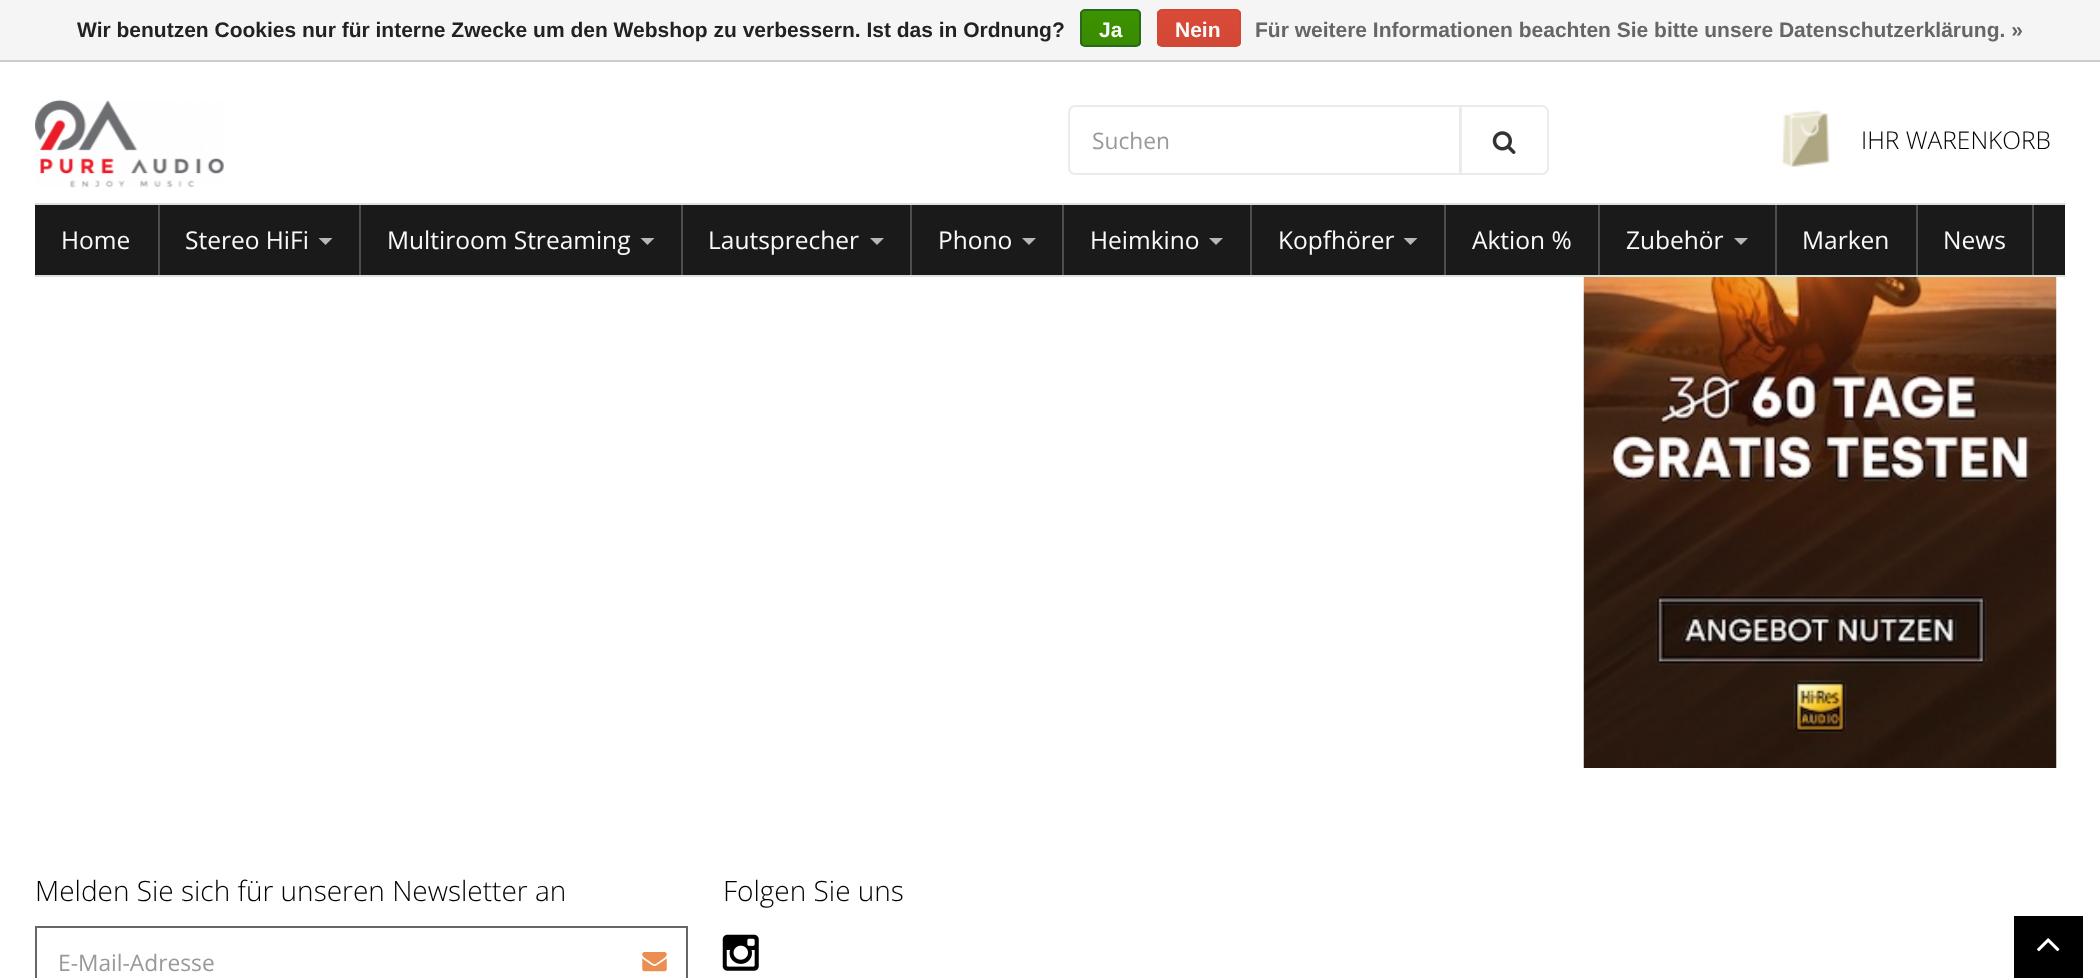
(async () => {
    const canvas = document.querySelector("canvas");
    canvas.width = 2100;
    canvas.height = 978;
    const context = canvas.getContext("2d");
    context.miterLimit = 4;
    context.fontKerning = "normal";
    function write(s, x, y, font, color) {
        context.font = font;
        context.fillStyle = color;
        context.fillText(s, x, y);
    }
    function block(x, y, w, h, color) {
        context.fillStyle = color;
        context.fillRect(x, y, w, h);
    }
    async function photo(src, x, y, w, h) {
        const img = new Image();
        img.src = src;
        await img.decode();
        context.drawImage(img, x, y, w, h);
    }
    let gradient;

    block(0, 0, 2100, 978, "rgb(255, 255, 255)");
    block(0, 0, 2100, 60, "rgb(245, 245, 245)");
    block(0, 60, 2100, 2, "rgb(204, 204, 204)");
    write("Wir benutzen Cookies nur für interne Zwecke um den Webshop zu verbessern. Ist das in Ordnung?", 77, 37, "bold 21px Liberation Sans", "rgb(34, 34, 34)");
    context.save();
    context.beginPath();
    context.roundRect(1080, 9, 61, 38, 5);
    context.clip();
    gradient = context.createLinearGradient(1110, 10, 1110, 46);
    gradient.addColorStop(0, "rgb(60, 147, 0)");
    gradient.addColorStop(1, "rgb(57, 138, 0)");
    context.fillStyle = gradient;
    context.fillRect(1080, 11, 61, 35);
    context.restore();
    context.beginPath();
    context.roundRect(1081, 10, 59, 36, 4);
    context.strokeStyle = "rgb(41, 105, 29)";
    context.lineWidth = 2;
    context.stroke();
    write("Ja", 1099, 37, "bold 21px Liberation Sans", "rgb(250, 250, 250)");
    context.save();
    context.beginPath();
    context.roundRect(1157, 9, 84, 38, 5);
    context.clip();
    gradient = context.createLinearGradient(1199, 10, 1199, 46);
    gradient.addColorStop(0, "rgb(220, 74, 56)");
    gradient.addColorStop(1, "rgb(209, 72, 54)");
    context.fillStyle = gradient;
    context.fillRect(1157, 11, 84, 35);
    context.restore();
    context.beginPath();
    context.roundRect(1158, 10, 82, 36, 4);
    context.strokeStyle = "rgb(209, 72, 54)";
    context.stroke();
    write("Nein", 1175, 37, "bold 21px Liberation Sans", "rgb(250, 250, 250)");
    write("Für weitere Informationen beachten Sie bitte unsere Datenschutzerklärung. »", 1255, 37, "bold 21px Liberation Sans", "rgb(102, 102, 102)");
    await photo("media/1.png", 35, 99, 189, 89);
    context.beginPath();
    context.roundRect(1069, 106, 391, 68, [6, 0, 0, 6]);
    context.strokeStyle = "rgb(235, 235, 235)";
    context.stroke();
    write("Suchen", 1092, 149, "22.75px Open Sans", "rgb(153, 153, 153)");
    context.fillStyle = "rgb(255, 255, 255)";
    context.beginPath();
    context.roundRect(1461, 106, 87, 68, [0, 6, 6, 0]);
    context.fill();
    context.stroke();
    await photo("media/2.png", 1492, 131, 24, 23);
    await photo("media/3.png", 1781, 110, 49, 57);
    write("IHR WARENKORB", 1861, 149, "300 24.5px Open Sans", "rgb(0, 0, 0)");
    block(35, 205, 2030, 70, "rgb(26, 26, 26)");
    block(35, 203, 2030, 2, "rgb(218, 227, 215)");
    block(35, 275, 2030, 2, "rgb(218, 227, 215)");
    block(158, 205, 2, 70, "rgb(77, 77, 77)");
    write("Home", 61, 249, "24.5px Open Sans", "rgb(250, 250, 250)");
    block(359, 205, 2, 70, "rgb(77, 77, 77)");
    write("Stereo HiFi", 185, 249, "24.5px Open Sans", "rgb(250, 250, 250)");
    context.fillStyle = "rgb(183, 183, 183)";
    context.beginPath();
    context.moveTo(318.5, 238);
    context.lineTo(332.5, 238);
    context.lineTo(325.5, 245);
    context.closePath();
    context.fill();
    block(681, 205, 2, 70, "rgb(77, 77, 77)");
    write("Multiroom Streaming", 387, 249, "24.5px Open Sans", "rgb(250, 250, 250)");
    context.fillStyle = "rgb(183, 183, 183)";
    context.beginPath();
    context.moveTo(640.5, 238);
    context.lineTo(654.5, 238);
    context.lineTo(647.5, 245);
    context.closePath();
    context.fill();
    block(910, 205, 2, 70, "rgb(77, 77, 77)");
    write("Lautsprecher", 708, 249, "24.5px Open Sans", "rgb(250, 250, 250)");
    context.fillStyle = "rgb(183, 183, 183)";
    context.beginPath();
    context.moveTo(870, 238);
    context.lineTo(884, 238);
    context.lineTo(877, 245);
    context.closePath();
    context.fill();
    block(1062, 205, 2, 70, "rgb(77, 77, 77)");
    write("Phono", 938, 249, "24.5px Open Sans", "rgb(250, 250, 250)");
    context.fillStyle = "rgb(183, 183, 183)";
    context.beginPath();
    context.moveTo(1022, 238);
    context.lineTo(1036, 238);
    context.lineTo(1029, 245);
    context.closePath();
    context.fill();
    block(1250, 205, 2, 70, "rgb(77, 77, 77)");
    write("Heimkino", 1090, 249, "24.5px Open Sans", "rgb(250, 250, 250)");
    context.fillStyle = "rgb(183, 183, 183)";
    context.beginPath();
    context.moveTo(1209, 238);
    context.lineTo(1223, 238);
    context.lineTo(1216, 245);
    context.closePath();
    context.fill();
    block(1444, 205, 2, 70, "rgb(77, 77, 77)");
    write("Kopfhörer", 1278, 249, "24.5px Open Sans", "rgb(250, 250, 250)");
    context.fillStyle = "rgb(183, 183, 183)";
    context.beginPath();
    context.moveTo(1403.5, 238);
    context.lineTo(1417.5, 238);
    context.lineTo(1410.5, 245);
    context.closePath();
    context.fill();
    block(1598, 205, 2, 70, "rgb(77, 77, 77)");
    write("Aktion %", 1472, 249, "24.5px Open Sans", "rgb(250, 250, 250)");
    block(1775, 205, 2, 70, "rgb(77, 77, 77)");
    write("Zubehör", 1626, 249, "24.5px Open Sans", "rgb(250, 250, 250)");
    context.fillStyle = "rgb(183, 183, 183)";
    context.beginPath();
    context.moveTo(1734, 238);
    context.lineTo(1748, 238);
    context.lineTo(1741, 245);
    context.closePath();
    context.fill();
    block(1916, 205, 2, 70, "rgb(77, 77, 77)");
    write("Marken", 1802, 249, "24.5px Open Sans", "rgb(250, 250, 250)");
    block(2032, 205, 2, 70, "rgb(77, 77, 77)");
    write("News", 1943, 249, "24.5px Open Sans", "rgb(250, 250, 250)");
    await photo("media/4.png", 1583, 277, 474, 491);
    write("Melden Sie sich für unseren Newsletter an", 35, 901, "300 28px Open Sans", "rgb(0, 0, 0)");
    context.strokeStyle = "rgb(102, 102, 102)";
    context.strokeRect(36, 927, 651, 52);
    write("E-Mail-Adresse", 58, 971, "22.75px Open Sans", "rgb(153, 153, 153)");
    await photo("media/5.png", 642, 952, 25, 20);
    write("Folgen Sie uns", 723, 901, "300 28px Open Sans", "rgb(0, 0, 0)");
    await photo("media/6.png", 722, 934, 37, 37);
    block(2014, 916, 69, 62, "rgb(0, 0, 0)");
    await photo("media/7.png", 2037, 938, 23, 14);
})();
